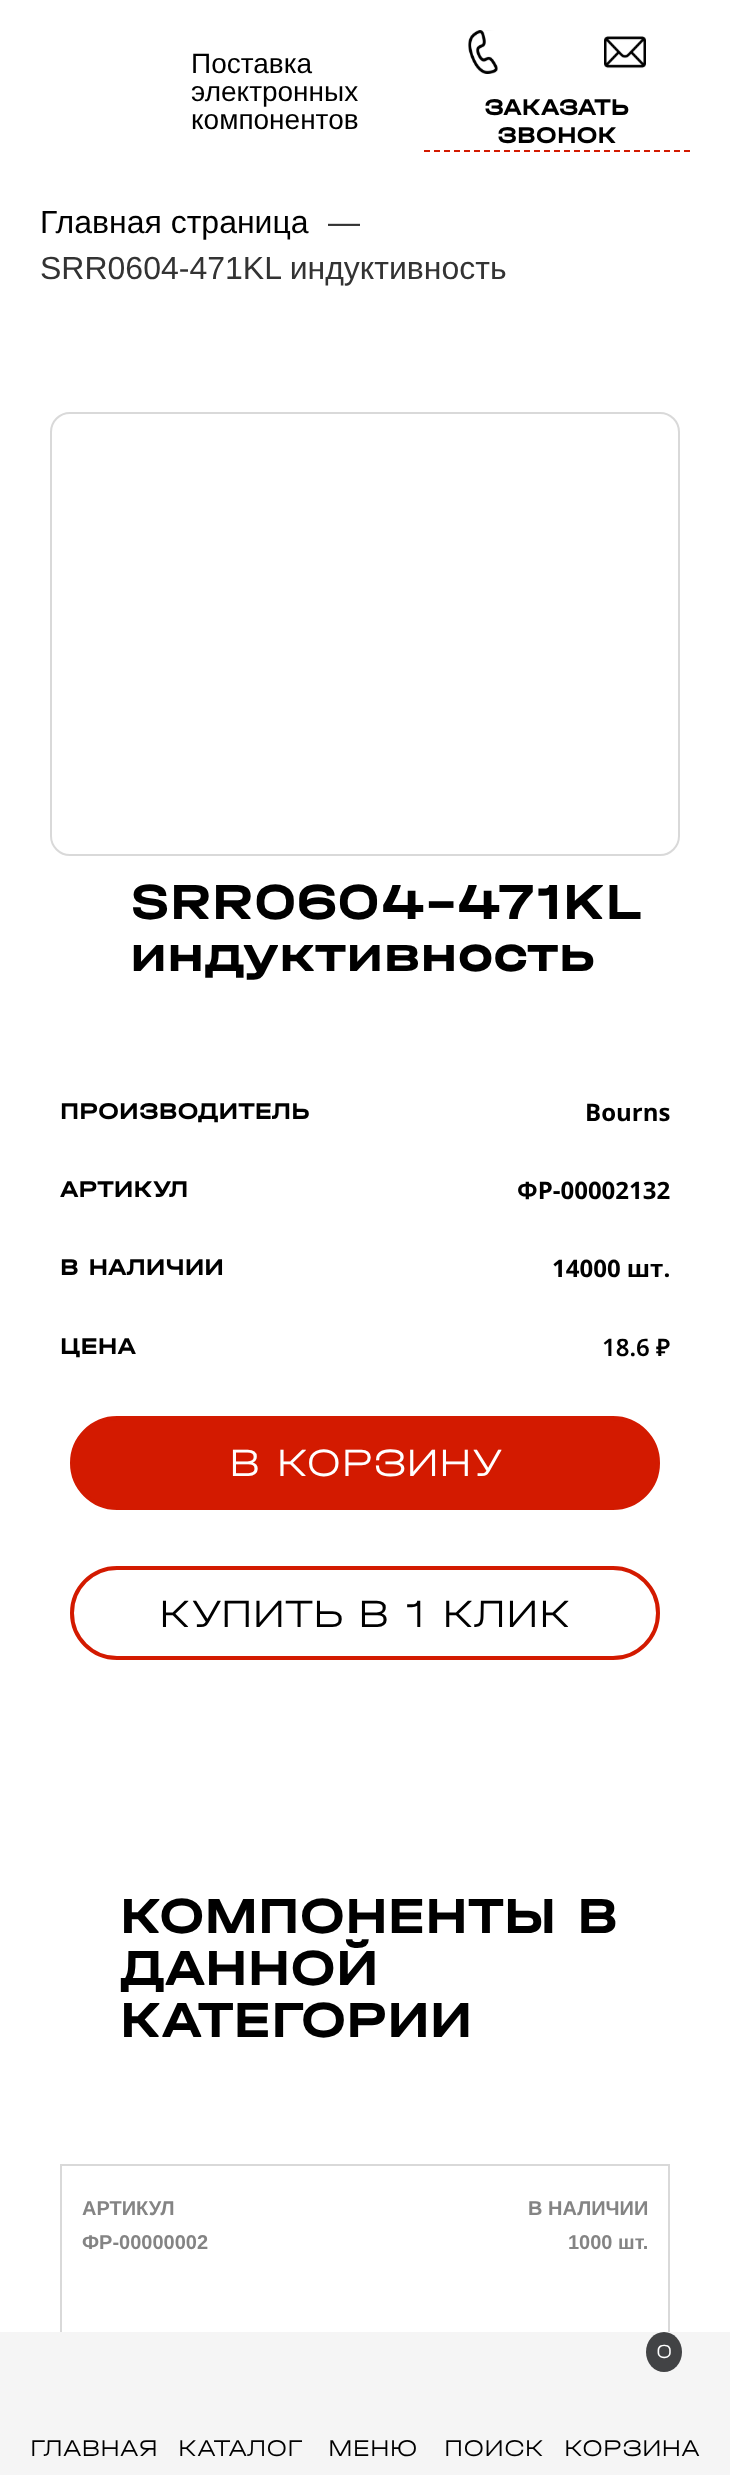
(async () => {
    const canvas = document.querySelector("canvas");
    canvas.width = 730;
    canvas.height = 2475;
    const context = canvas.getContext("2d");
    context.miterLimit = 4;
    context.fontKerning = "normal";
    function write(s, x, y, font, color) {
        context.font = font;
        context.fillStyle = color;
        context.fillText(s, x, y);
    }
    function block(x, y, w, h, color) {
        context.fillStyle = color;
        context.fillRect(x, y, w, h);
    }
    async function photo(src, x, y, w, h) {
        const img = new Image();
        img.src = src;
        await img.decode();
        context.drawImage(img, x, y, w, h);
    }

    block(0, 0, 730, 2475, "rgb(255, 255, 255)");
    write("Поставка", 191, 73, "28px Liberation Sans", "rgb(0, 0, 0)");
    write("электронных", 191, 101, "28px Liberation Sans", "rgb(0, 0, 0)");
    write("компонентов", 191, 129, "28px Liberation Sans", "rgb(0, 0, 0)");
    await photo("media/1.png", 468, 30, 30, 44);
    await photo("media/2.png", 604, 36, 42, 33);
    context.beginPath();
    context.moveTo(424, 151);
    context.lineTo(690, 151);
    context.strokeStyle = "rgb(211, 26, 0)";
    context.lineWidth = 2;
    context.setLineDash([6, 4]);
    context.stroke();
    write("ЗАКАЗАТЬ", 484, 115, "bold 24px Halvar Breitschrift", "rgb(0, 0, 0)");
    write("ЗВОНОК", 497, 143, "bold 24px Halvar Breitschrift", "rgb(0, 0, 0)");
    write("Главная страница", 40, 233, "32px Liberation Sans", "rgb(0, 0, 0)");
    write("—", 328, 233, "32px Liberation Sans", "rgb(51, 51, 51)");
    write("SRR0604-471KL индуктивность", 40, 279, "32px Liberation Sans", "rgb(51, 51, 51)");
    context.beginPath();
    context.roundRect(51, 413, 628, 442, 19);
    context.strokeStyle = "rgb(217, 217, 217)";
    context.setLineDash([]);
    context.stroke();
    write("SRR0604-471KL", 130, 919, "bold 52px Halvar Breitschrift", "rgb(0, 0, 0)");
    write("индуктивность", 130, 971, "bold 52px Halvar Breitschrift", "rgb(0, 0, 0)");
    write("ПРОИЗВОДИТЕЛЬ", 60, 1119, "bold 24px Halvar Breitschrift", "rgb(0, 0, 0)");
    write("Bourns", 585, 1121, "bold 24px Open Sans", "rgb(0, 0, 0)");
    write("АРТИКУЛ", 60, 1197, "bold 24px Halvar Breitschrift", "rgb(0, 0, 0)");
    write("ФР-00002132", 517, 1199, "bold 24px Open Sans", "rgb(0, 0, 0)");
    write("В НАЛИЧИИ", 60, 1275, "bold 24px Halvar Breitschrift", "rgb(0, 0, 0)");
    write("14000 шт.", 552, 1277, "bold 24px Open Sans", "rgb(0, 0, 0)");
    write("ЦЕНА", 60, 1354, "bold 24px Halvar Breitschrift", "rgb(0, 0, 0)");
    write("18.6 ₽", 602, 1356, "600 24px Noto Sans", "rgb(0, 0, 0)");
    context.fillStyle = "rgb(211, 26, 0)";
    context.beginPath();
    context.roundRect(72, 1418, 586, 90, 45);
    context.fill();
    context.strokeStyle = "rgb(211, 26, 0)";
    context.lineWidth = 4;
    context.stroke();
    write("В КОРЗИНУ", 229, 1476, "300 40px Halvar Breitschrift", "rgb(255, 255, 255)");
    context.beginPath();
    context.roundRect(72, 1568, 586, 90, 45);
    context.stroke();
    write("КУПИТЬ В 1 КЛИК", 159, 1627, "300 40px Halvar Breitschrift", "rgb(0, 0, 0)");
    write("КОМПОНЕНТЫ В", 120, 1933, "bold 52px Halvar Breitschrift", "rgb(0, 0, 0)");
    write("ДАННОЙ", 120, 1985, "bold 52px Halvar Breitschrift", "rgb(0, 0, 0)");
    write("КАТЕГОРИИ", 120, 2037, "bold 52px Halvar Breitschrift", "rgb(0, 0, 0)");
    context.strokeStyle = "rgb(217, 217, 217)";
    context.lineWidth = 2;
    context.strokeRect(61, 2165, 608, 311);
    write("АРТИКУЛ", 82, 2215, "bold 20px Liberation Sans", "rgb(132, 132, 132)");
    write("ФР-00000002", 82, 2249, "bold 20px Liberation Sans", "rgb(132, 132, 132)");
    write("В НАЛИЧИИ", 528, 2215, "bold 20px Liberation Sans", "rgb(132, 132, 132)");
    write("1000 шт.", 568, 2249, "bold 20px Liberation Sans", "rgb(132, 132, 132)");
    block(0, 2332, 730, 143, "rgb(245, 245, 245)");
    write("ГЛАВНАЯ", 30, 2456, "300 24px Halvar Breitschrift", "rgb(0, 0, 0)");
    write("КАТАЛОГ", 178, 2456, "300 24px Halvar Breitschrift", "rgb(0, 0, 0)");
    write("МЕНЮ", 328, 2456, "300 24px Halvar Breitschrift", "rgb(0, 0, 0)");
    write("ПОИСК", 444, 2456, "300 24px Halvar Breitschrift", "rgb(0, 0, 0)");
    context.fillStyle = "rgb(66, 67, 69)";
    context.beginPath();
    context.ellipse(664, 2352, 18, 20, 0, 0, Math.PI * 2);
    context.fill();
    write("0", 656, 2358, "300 20px Halvar Breitschrift", "rgb(255, 255, 255)");
    write("КОРЗИНА", 564, 2456, "300 24px Halvar Breitschrift", "rgb(0, 0, 0)");
})();
